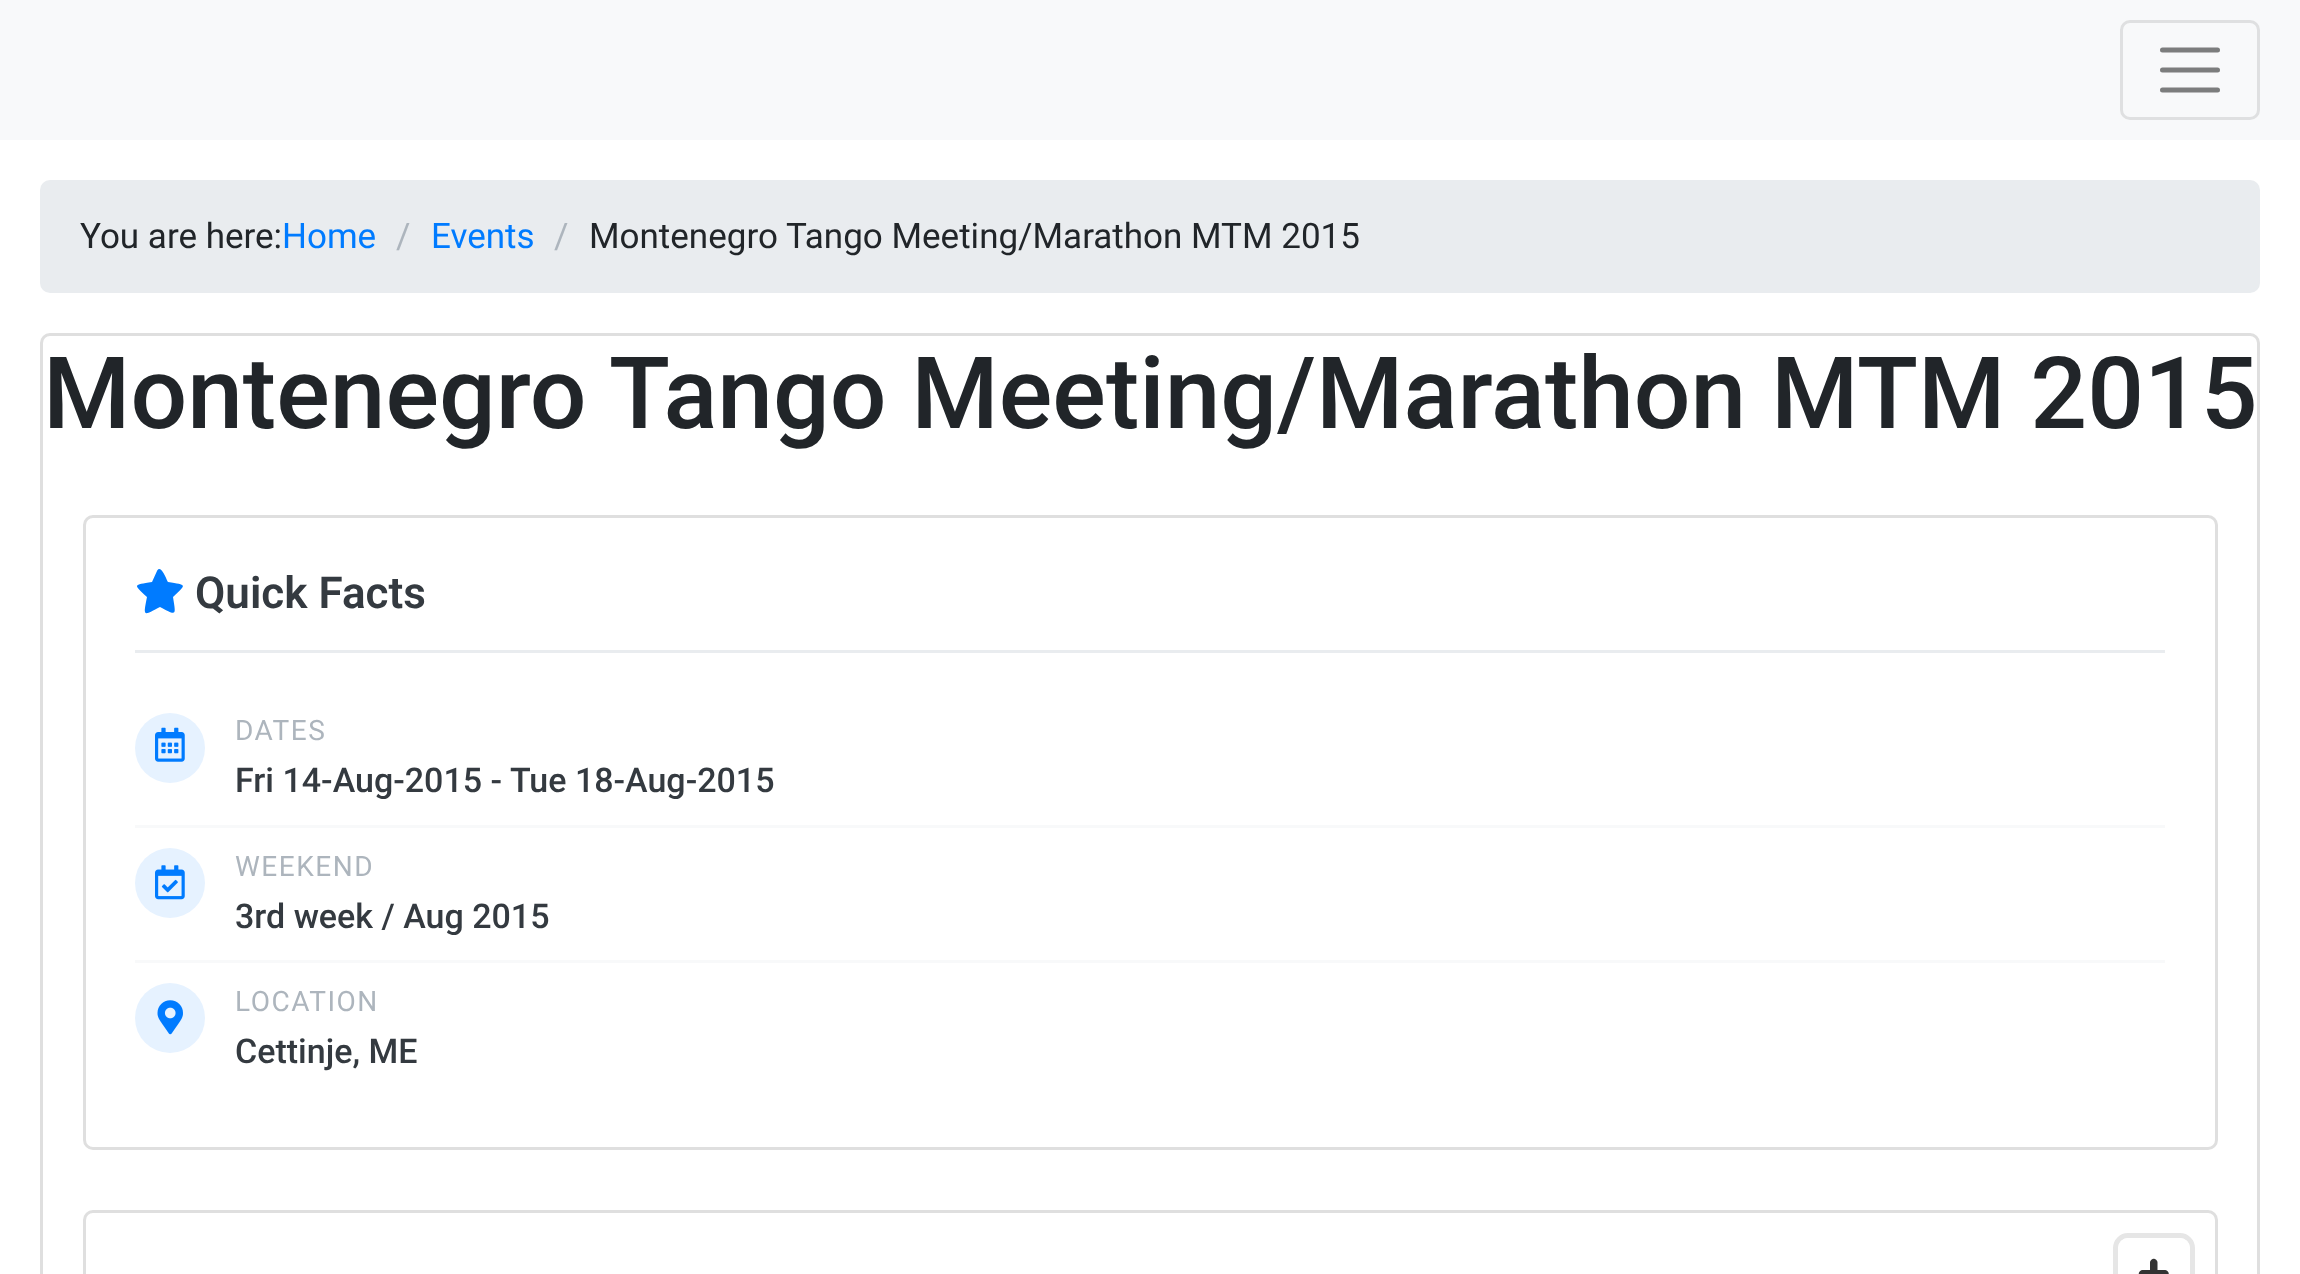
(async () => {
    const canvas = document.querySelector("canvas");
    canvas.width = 2300;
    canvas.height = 1274;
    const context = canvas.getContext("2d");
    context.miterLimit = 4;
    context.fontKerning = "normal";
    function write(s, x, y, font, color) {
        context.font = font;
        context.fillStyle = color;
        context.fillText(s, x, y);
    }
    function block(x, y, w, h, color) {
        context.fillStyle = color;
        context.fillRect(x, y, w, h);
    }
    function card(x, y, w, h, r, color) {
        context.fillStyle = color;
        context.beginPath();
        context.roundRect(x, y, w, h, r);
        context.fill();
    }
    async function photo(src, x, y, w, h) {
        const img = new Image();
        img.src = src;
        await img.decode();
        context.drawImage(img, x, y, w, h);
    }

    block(0, 0, 2300, 1274, "rgb(255, 255, 255)");
    block(0, 0, 2300, 140, "rgb(248, 249, 250)");
    context.beginPath();
    context.roundRect(2121.5, 21.5, 137, 97, 8.5);
    context.strokeStyle = "rgb(223, 224, 225)";
    context.lineWidth = 3;
    context.stroke();
    context.beginPath();
    context.moveTo(2162.5, 50);
    context.lineTo(2217.5, 50);
    context.moveTo(2162.5, 70);
    context.lineTo(2217.5, 70);
    context.moveTo(2162.5, 90);
    context.lineTo(2217.5, 90);
    context.strokeStyle = "rgb(124, 125, 125)";
    context.lineWidth = 5;
    context.lineCap = "round";
    context.stroke();
    card(40, 180, 2220, 113, 10, "rgb(233, 236, 239)");
    write("You are here:", 80, 248, "35px Roboto", "rgb(33, 37, 41)");
    write("Home", 282, 248, "35px Roboto", "rgb(0, 123, 255)");
    write("/", 396, 248, "35px Roboto", "rgb(173, 181, 189)");
    write("Events", 431, 248, "35px Roboto", "rgb(0, 123, 255)");
    write("/", 554, 248, "35px Roboto", "rgb(173, 181, 189)");
    write("Montenegro Tango Meeting/Marathon MTM 2015", 589, 248, "35px Roboto", "rgb(33, 37, 41)");
    context.beginPath();
    context.roundRect(41.5, 334.5, 2217, 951, 8.5);
    context.strokeStyle = "rgb(223, 223, 223)";
    context.lineWidth = 3;
    context.stroke();
    write("Montenegro Tango Meeting/Marathon MTM 2015", 43, 428, "500 100px Roboto", "rgb(33, 37, 41)");
    context.beginPath();
    context.roundRect(84.5, 516.5, 2132, 632, 8.5);
    context.stroke();
    block(135, 650, 2030, 3, "rgb(233, 236, 239)");
    context.fillStyle = "rgb(0, 123, 255)";
    context.beginPath();
    context.moveTo(157, 571);
    context.bezierCurveTo(161, 563, 167, 581, 168, 582);
    context.bezierCurveTo(187, 585, 187, 584, 173, 597);
    context.bezierCurveTo(176, 616, 177, 616, 160, 607);
    context.bezierCurveTo(143, 616, 143, 617, 147, 597);
    context.bezierCurveTo(133, 584, 133, 585, 152, 582);
    context.closePath();
    context.fill();
    write("Quick Facts", 195, 608, "600 44px Roboto", "rgb(52, 58, 64)");
    block(135, 825, 2030, 3, "rgb(248, 249, 250)");
    context.fillStyle = "rgb(230, 242, 255)";
    context.beginPath();
    context.arc(170, 748, 35, 0, Math.PI * 2);
    context.fill();
    await photo("media/1.png", 155, 727, 30, 35);
    context.letterSpacing = "1.5px";
    write("DATES", 235, 740, "28px Roboto", "rgb(173, 181, 189)");
    context.letterSpacing = "0px";
    write("Fri 14-Aug-2015 -", 235, 792, "500 34px Roboto", "rgb(52, 58, 64)");
    write("Tue 18-Aug-2015", 510, 792, "500 34px Roboto", "rgb(52, 58, 64)");
    block(135, 960, 2030, 3, "rgb(248, 249, 250)");
    context.fillStyle = "rgb(230, 242, 255)";
    context.beginPath();
    context.arc(170, 883, 35, 0, Math.PI * 2);
    context.fill();
    await photo("media/2.png", 155, 865, 30, 35);
    context.letterSpacing = "1.5px";
    write("WEEKEND", 235, 876, "28px Roboto", "rgb(173, 181, 189)");
    context.letterSpacing = "0px";
    write("3rd week / Aug 2015", 235, 928, "500 34px Roboto", "rgb(52, 58, 64)");
    context.fillStyle = "rgb(230, 242, 255)";
    context.beginPath();
    context.arc(170, 1018, 35, 0, Math.PI * 2);
    context.fill();
    await photo("media/3.png", 157, 1000, 26, 35);
    context.letterSpacing = "1.5px";
    write("LOCATION", 235, 1011, "28px Roboto", "rgb(173, 181, 189)");
    context.letterSpacing = "0px";
    write("Cettinje, ME", 235, 1063, "500 34px Roboto", "rgb(52, 58, 64)");
    context.beginPath();
    context.roundRect(84.5, 1211.5, 2132, 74, 8.5);
    context.stroke();
    context.beginPath();
    context.roundRect(2115.5, 1235.5, 77, 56, 12.5);
    context.strokeStyle = "rgb(230, 230, 230)";
    context.lineWidth = 5;
    context.stroke();
    card(2118, 1238, 72, 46, 10, "rgb(255, 255, 255)");
    await photo("media/4.png", 2138, 1258, 31, 16);
})();
